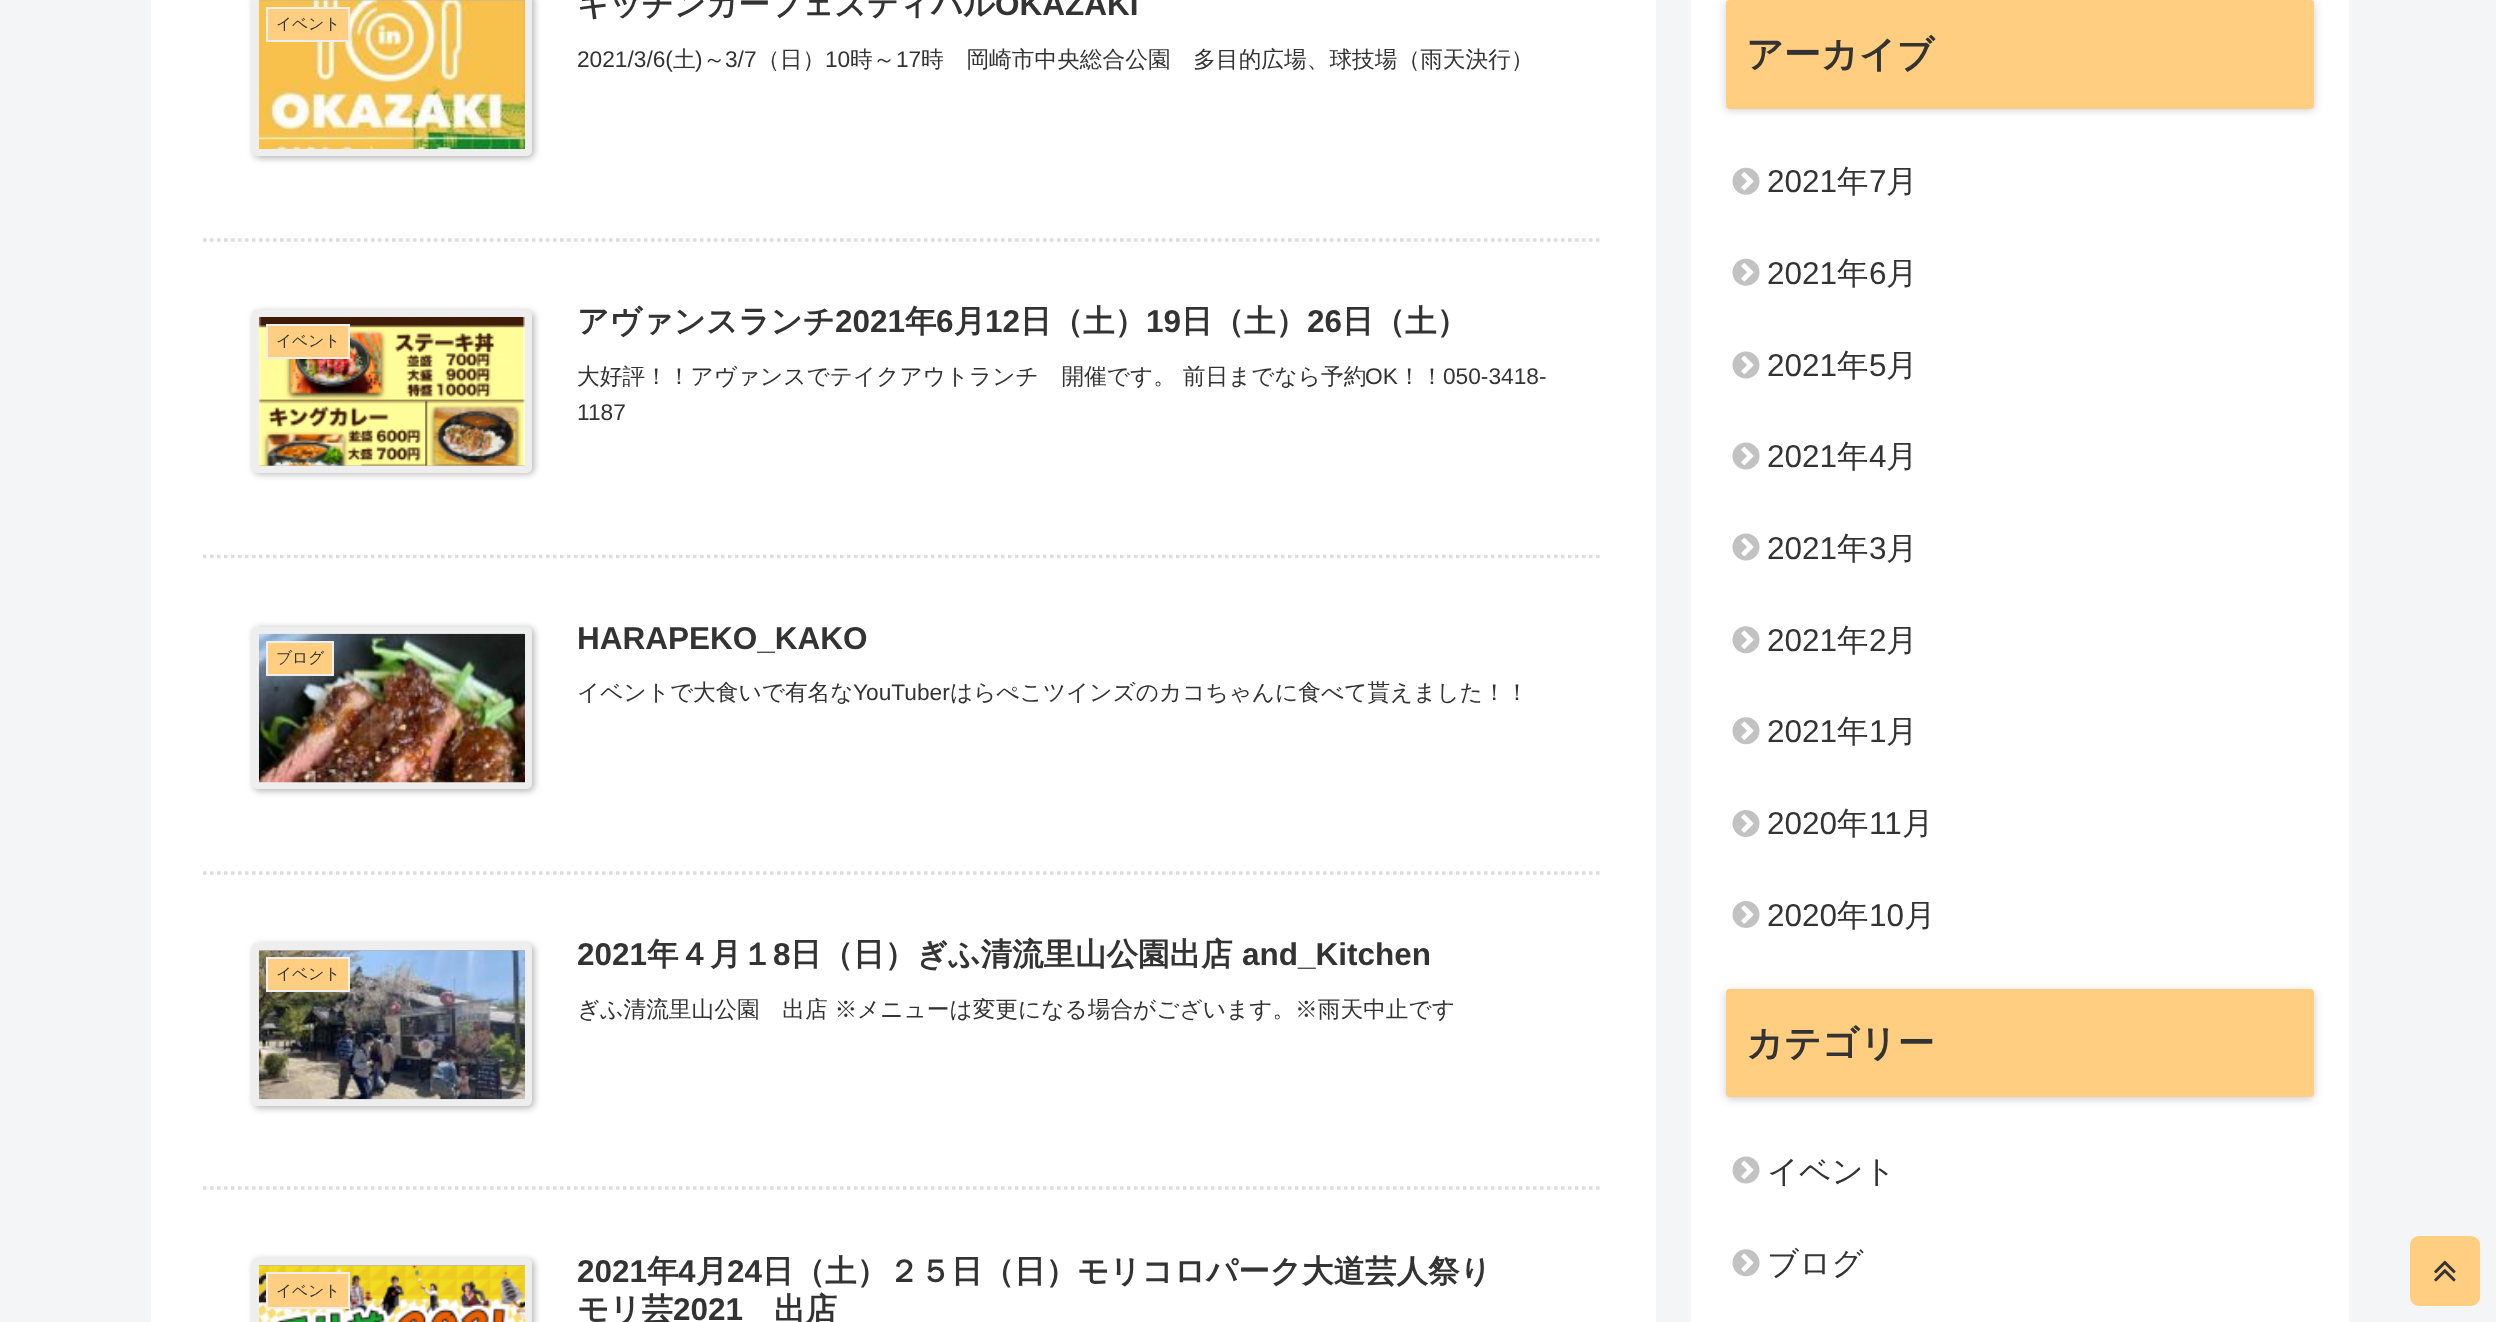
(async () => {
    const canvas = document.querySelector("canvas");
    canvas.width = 2496;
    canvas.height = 1322;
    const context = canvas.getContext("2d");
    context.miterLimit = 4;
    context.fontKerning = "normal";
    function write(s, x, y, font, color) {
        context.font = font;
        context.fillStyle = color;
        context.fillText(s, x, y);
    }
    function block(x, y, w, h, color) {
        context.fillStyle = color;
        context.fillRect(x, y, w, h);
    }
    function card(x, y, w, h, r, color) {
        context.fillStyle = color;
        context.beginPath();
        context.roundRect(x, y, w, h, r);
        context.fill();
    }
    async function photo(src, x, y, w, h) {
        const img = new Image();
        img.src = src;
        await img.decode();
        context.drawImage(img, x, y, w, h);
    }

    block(0, 0, 2496, 1322, "rgb(244, 245, 247)");
    block(151, 0, 1505, 1322, "rgb(255, 255, 255)");
    context.beginPath();
    context.moveTo(203, 240);
    context.lineTo(1603, 240);
    context.strokeStyle = "rgb(221, 221, 221)";
    context.lineWidth = 3.5;
    context.setLineDash([3.5, 3.5]);
    context.stroke();
    context.fillStyle = "rgba(0, 0, 0, 0.3)";
    context.filter = "blur(3.5px)";
    context.beginPath();
    context.roundRect(254, -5, 280, 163, 5);
    context.fill();
    context.filter = "none";
    context.beginPath();
    context.roundRect(255.5, -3.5, 273, 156, 1.5);
    context.strokeStyle = "rgb(238, 238, 238)";
    context.lineWidth = 7;
    context.setLineDash([]);
    context.stroke();
    await photo("media/1.png", 259, 0, 266, 149);
    context.fillStyle = "rgb(255, 206, 128)";
    context.beginPath();
    context.rect(267, 8, 82, 33);
    context.fill();
    context.lineWidth = 2;
    context.stroke();
    write("イベント", 276, 29, "500 15.75px WenQuanYi Zen Hei", "rgb(51, 51, 51)");
    write("キッチンカーフェスティバル", 577, 15, "bold 31.5px WenQuanYi Zen Hei", "rgb(51, 51, 51)");
    write("OKAZAKI", 995, 15, "bold 31.5px Liberation Sans", "rgb(51, 51, 51)");
    write("2021/3/6(", 577, 67, "22.7px Liberation Sans", "rgb(51, 51, 51)");
    write("土", 673, 67, "500 22.7px WenQuanYi Zen Hei", "rgb(51, 51, 51)");
    write(")", 695, 67, "22.7px Liberation Sans", "rgb(51, 51, 51)");
    write("～", 703, 67, "500 22.7px WenQuanYi Zen Hei", "rgb(51, 51, 51)");
    write("3/7", 725, 67, "22.7px Liberation Sans", "rgb(51, 51, 51)");
    write("（日）", 757, 67, "500 22.7px WenQuanYi Zen Hei", "rgb(51, 51, 51)");
    write("10", 825, 67, "22.7px Liberation Sans", "rgb(51, 51, 51)");
    write("時～", 850, 67, "500 22.7px WenQuanYi Zen Hei", "rgb(51, 51, 51)");
    write("17", 896, 67, "22.7px Liberation Sans", "rgb(51, 51, 51)");
    write("時　岡崎市中央総合公園　多目的広場、球技場（雨天決行）", 921, 67, "500 22.7px WenQuanYi Zen Hei", "rgb(51, 51, 51)");
    context.beginPath();
    context.moveTo(203, 556.5);
    context.lineTo(1603, 556.5);
    context.strokeStyle = "rgb(221, 221, 221)";
    context.lineWidth = 3.5;
    context.setLineDash([3.5, 3.5]);
    context.stroke();
    context.fillStyle = "rgba(0, 0, 0, 0.3)";
    context.filter = "blur(3.5px)";
    context.beginPath();
    context.roundRect(254, 312, 280, 162, 5);
    context.fill();
    context.filter = "none";
    context.beginPath();
    context.roundRect(255.5, 313.5, 273, 156, 1.5);
    context.strokeStyle = "rgb(238, 238, 238)";
    context.lineWidth = 7;
    context.setLineDash([]);
    context.stroke();
    await photo("media/2.png", 259, 317, 266, 149);
    context.fillStyle = "rgb(255, 206, 128)";
    context.beginPath();
    context.rect(267, 325, 82, 33);
    context.fill();
    context.lineWidth = 2;
    context.stroke();
    write("イベント", 276, 346, "500 15.75px WenQuanYi Zen Hei", "rgb(51, 51, 51)");
    write("アヴァンスランチ", 577, 332, "bold 31.5px WenQuanYi Zen Hei", "rgb(51, 51, 51)");
    write("2021", 835, 332, "bold 31.5px Liberation Sans", "rgb(51, 51, 51)");
    write("年", 905, 332, "bold 31.5px WenQuanYi Zen Hei", "rgb(51, 51, 51)");
    write("6", 936, 332, "bold 31.5px Liberation Sans", "rgb(51, 51, 51)");
    write("月", 954, 332, "bold 31.5px WenQuanYi Zen Hei", "rgb(51, 51, 51)");
    write("12", 985, 332, "bold 31.5px Liberation Sans", "rgb(51, 51, 51)");
    write("日（土）", 1020, 332, "bold 31.5px WenQuanYi Zen Hei", "rgb(51, 51, 51)");
    write("19", 1146, 332, "bold 31.5px Liberation Sans", "rgb(51, 51, 51)");
    write("日（土）", 1181, 332, "bold 31.5px WenQuanYi Zen Hei", "rgb(51, 51, 51)");
    write("26", 1307, 332, "bold 31.5px Liberation Sans", "rgb(51, 51, 51)");
    write("日（土）", 1342, 332, "bold 31.5px WenQuanYi Zen Hei", "rgb(51, 51, 51)");
    write("大好評！！アヴァンスでテイクアウトランチ　開催です。 前日までなら予約", 577, 384, "500 22.7px WenQuanYi Zen Hei", "rgb(51, 51, 51)");
    write("OK", 1365, 384, "22.7px Liberation Sans", "rgb(51, 51, 51)");
    write("！！", 1398, 384, "500 22.7px WenQuanYi Zen Hei", "rgb(51, 51, 51)");
    write("050-3418-", 1443, 384, "22.7px Liberation Sans", "rgb(51, 51, 51)");
    write("1187", 577, 420, "22.7px Liberation Sans", "rgb(51, 51, 51)");
    context.beginPath();
    context.moveTo(203, 873);
    context.lineTo(1603, 873);
    context.strokeStyle = "rgb(221, 221, 221)";
    context.lineWidth = 3.5;
    context.setLineDash([3.5, 3.5]);
    context.stroke();
    context.fillStyle = "rgba(0, 0, 0, 0.3)";
    context.filter = "blur(3.5px)";
    context.beginPath();
    context.roundRect(254, 628, 280, 163, 5);
    context.fill();
    context.filter = "none";
    context.beginPath();
    context.roundRect(255.5, 630.5, 273, 155, 1.5);
    context.strokeStyle = "rgb(238, 238, 238)";
    context.lineWidth = 7;
    context.setLineDash([]);
    context.stroke();
    await photo("media/3.png", 259, 633, 266, 150);
    context.fillStyle = "rgb(255, 206, 128)";
    context.beginPath();
    context.rect(267, 642, 66, 33);
    context.fill();
    context.lineWidth = 2;
    context.stroke();
    write("ブログ", 276, 663, "500 15.75px WenQuanYi Zen Hei", "rgb(51, 51, 51)");
    write("HARAPEKO_KAKO", 577, 649, "bold 31.5px Liberation Sans", "rgb(51, 51, 51)");
    write("イベントで大食いで有名な", 577, 700, "500 22.7px WenQuanYi Zen Hei", "rgb(51, 51, 51)");
    write("YouTuber", 853, 700, "22.7px Liberation Sans", "rgb(51, 51, 51)");
    write("はらぺこツインズのカコちゃんに食べて貰えました！！", 950, 700, "500 22.7px WenQuanYi Zen Hei", "rgb(51, 51, 51)");
    context.beginPath();
    context.moveTo(203, 1188);
    context.lineTo(1603, 1188);
    context.strokeStyle = "rgb(221, 221, 221)";
    context.lineWidth = 3.5;
    context.setLineDash([3.5, 3.5]);
    context.stroke();
    context.fillStyle = "rgba(0, 0, 0, 0.3)";
    context.filter = "blur(3.5px)";
    context.beginPath();
    context.roundRect(254, 945, 280, 163, 5);
    context.fill();
    context.filter = "none";
    context.beginPath();
    context.roundRect(255.5, 946.5, 273, 156, 1.5);
    context.strokeStyle = "rgb(238, 238, 238)";
    context.lineWidth = 7;
    context.setLineDash([]);
    context.stroke();
    await photo("media/4.png", 259, 950, 266, 150);
    context.fillStyle = "rgb(255, 206, 128)";
    context.beginPath();
    context.rect(267, 958, 82, 33);
    context.fill();
    context.lineWidth = 2;
    context.stroke();
    write("イベント", 276, 979, "500 15.75px WenQuanYi Zen Hei", "rgb(51, 51, 51)");
    write("2021", 577, 965, "bold 31.5px Liberation Sans", "rgb(51, 51, 51)");
    write("年４月１", 647, 965, "bold 31.5px WenQuanYi Zen Hei", "rgb(51, 51, 51)");
    write("8", 773, 965, "bold 31.5px Liberation Sans", "rgb(51, 51, 51)");
    write("日（日）ぎふ清流里山公園出店", 790, 965, "bold 31.5px WenQuanYi Zen Hei", "rgb(51, 51, 51)");
    write("and_Kitchen", 1242, 965, "bold 31.5px Liberation Sans", "rgb(51, 51, 51)");
    write("ぎふ清流里山公園　出店 ※メニューは変更になる場合がございます。※雨天中止です", 577, 1017, "500 22.7px WenQuanYi Zen Hei", "rgb(51, 51, 51)");
    context.fillStyle = "rgba(0, 0, 0, 0.3)";
    context.filter = "blur(3.5px)";
    context.beginPath();
    context.roundRect(254, 1260, 280, 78, 5);
    context.fill();
    context.filter = "none";
    context.beginPath();
    context.roundRect(255.5, 1261.5, 273, 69, 1.5);
    context.lineWidth = 7;
    context.stroke();
    await photo("media/5.png", 259, 1265, 266, 57);
    context.fillStyle = "rgb(255, 206, 128)";
    context.beginPath();
    context.rect(267, 1273, 82, 35);
    context.fill();
    context.lineWidth = 2;
    context.stroke();
    write("イベント", 276, 1296, "500 15.75px WenQuanYi Zen Hei", "rgb(51, 51, 51)");
    write("2021", 577, 1282, "bold 31.5px Liberation Sans", "rgb(51, 51, 51)");
    write("年", 647, 1282, "bold 31.5px WenQuanYi Zen Hei", "rgb(51, 51, 51)");
    write("4", 678, 1282, "bold 31.5px Liberation Sans", "rgb(51, 51, 51)");
    write("月", 696, 1282, "bold 31.5px WenQuanYi Zen Hei", "rgb(51, 51, 51)");
    write("24", 727, 1282, "bold 31.5px Liberation Sans", "rgb(51, 51, 51)");
    write("日（土）２５日（日）モリコロパーク大道芸人祭り", 762, 1282, "bold 31.5px WenQuanYi Zen Hei", "rgb(51, 51, 51)");
    write("モリ芸", 577, 1320, "bold 31.5px WenQuanYi Zen Hei", "rgb(51, 51, 51)");
    write("2021", 673, 1320, "bold 31.5px Liberation Sans", "rgb(51, 51, 51)");
    write("出店", 774, 1320, "bold 31.5px WenQuanYi Zen Hei", "rgb(51, 51, 51)");
    block(1691, 0, 658, 1322, "rgb(255, 255, 255)");
    context.fillStyle = "rgba(0, 0, 0, 0.2)";
    context.filter = "blur(4.5px)";
    context.beginPath();
    context.roundRect(1726, 2, 588, 108, 4);
    context.fill();
    context.filter = "none";
    card(1726, 0, 588, 109, 4, "rgb(255, 206, 128)");
    write("アーカイブ", 1746, 67, "bold 37px WenQuanYi Zen Hei", "rgb(51, 51, 51)");
    await photo("media/6.png", 1732, 167, 28, 28);
    write("2021", 1767, 192, "31.5px Liberation Sans", "rgb(51, 51, 51)");
    write("年", 1837, 192, "500 31.5px WenQuanYi Zen Hei", "rgb(51, 51, 51)");
    write("7", 1869, 192, "31.5px Liberation Sans", "rgb(51, 51, 51)");
    write("月", 1886, 192, "500 31.5px WenQuanYi Zen Hei", "rgb(51, 51, 51)");
    await photo("media/6.png", 1732, 258, 28, 28);
    write("2021", 1767, 284, "31.5px Liberation Sans", "rgb(51, 51, 51)");
    write("年", 1837, 284, "500 31.5px WenQuanYi Zen Hei", "rgb(51, 51, 51)");
    write("6", 1869, 284, "31.5px Liberation Sans", "rgb(51, 51, 51)");
    write("月", 1886, 284, "500 31.5px WenQuanYi Zen Hei", "rgb(51, 51, 51)");
    await photo("media/7.png", 1732, 351, 28, 28);
    write("2021", 1767, 376, "31.5px Liberation Sans", "rgb(51, 51, 51)");
    write("年", 1837, 376, "500 31.5px WenQuanYi Zen Hei", "rgb(51, 51, 51)");
    write("5", 1869, 376, "31.5px Liberation Sans", "rgb(51, 51, 51)");
    write("月", 1886, 376, "500 31.5px WenQuanYi Zen Hei", "rgb(51, 51, 51)");
    await photo("media/8.png", 1732, 442, 28, 28);
    write("2021", 1767, 467, "31.5px Liberation Sans", "rgb(51, 51, 51)");
    write("年", 1837, 467, "500 31.5px WenQuanYi Zen Hei", "rgb(51, 51, 51)");
    write("4", 1869, 467, "31.5px Liberation Sans", "rgb(51, 51, 51)");
    write("月", 1886, 467, "500 31.5px WenQuanYi Zen Hei", "rgb(51, 51, 51)");
    await photo("media/7.png", 1732, 533, 28, 28);
    write("2021", 1767, 559, "31.5px Liberation Sans", "rgb(51, 51, 51)");
    write("年", 1837, 559, "500 31.5px WenQuanYi Zen Hei", "rgb(51, 51, 51)");
    write("3", 1869, 559, "31.5px Liberation Sans", "rgb(51, 51, 51)");
    write("月", 1886, 559, "500 31.5px WenQuanYi Zen Hei", "rgb(51, 51, 51)");
    await photo("media/9.png", 1732, 626, 28, 28);
    write("2021", 1767, 651, "31.5px Liberation Sans", "rgb(51, 51, 51)");
    write("年", 1837, 651, "500 31.5px WenQuanYi Zen Hei", "rgb(51, 51, 51)");
    write("2", 1869, 651, "31.5px Liberation Sans", "rgb(51, 51, 51)");
    write("月", 1886, 651, "500 31.5px WenQuanYi Zen Hei", "rgb(51, 51, 51)");
    await photo("media/9.png", 1732, 717, 28, 28);
    write("2021", 1767, 742, "31.5px Liberation Sans", "rgb(51, 51, 51)");
    write("年", 1837, 742, "500 31.5px WenQuanYi Zen Hei", "rgb(51, 51, 51)");
    write("1", 1869, 742, "31.5px Liberation Sans", "rgb(51, 51, 51)");
    write("月", 1886, 742, "500 31.5px WenQuanYi Zen Hei", "rgb(51, 51, 51)");
    await photo("media/10.png", 1732, 810, 28, 27);
    write("2020", 1767, 834, "31.5px Liberation Sans", "rgb(51, 51, 51)");
    write("年", 1837, 834, "500 31.5px WenQuanYi Zen Hei", "rgb(51, 51, 51)");
    write("11", 1869, 834, "31.5px Liberation Sans", "rgb(51, 51, 51)");
    write("月", 1902, 834, "500 31.5px WenQuanYi Zen Hei", "rgb(51, 51, 51)");
    await photo("media/11.png", 1732, 901, 28, 27);
    write("2020", 1767, 926, "31.5px Liberation Sans", "rgb(51, 51, 51)");
    write("年", 1837, 926, "500 31.5px WenQuanYi Zen Hei", "rgb(51, 51, 51)");
    write("10", 1869, 926, "31.5px Liberation Sans", "rgb(51, 51, 51)");
    write("月", 1904, 926, "500 31.5px WenQuanYi Zen Hei", "rgb(51, 51, 51)");
    context.fillStyle = "rgba(0, 0, 0, 0.2)";
    context.filter = "blur(4.5px)";
    context.beginPath();
    context.roundRect(1726, 991, 588, 108, 4);
    context.fill();
    context.filter = "none";
    card(1726, 989, 588, 108, 4, "rgb(255, 206, 128)");
    write("カテゴリー", 1746, 1056, "bold 37px WenQuanYi Zen Hei", "rgb(51, 51, 51)");
    await photo("media/7.png", 1732, 1156, 28, 28);
    write("イベント", 1767, 1182, "500 31.5px WenQuanYi Zen Hei", "rgb(51, 51, 51)");
    await photo("media/9.png", 1732, 1249, 28, 28);
    write("ブログ", 1767, 1274, "500 31.5px WenQuanYi Zen Hei", "rgb(51, 51, 51)");
    card(2410, 1236, 70, 70, 9, "rgb(255, 206, 128)");
    await photo("media/12.png", 2434, 1260, 22, 22);
})();
